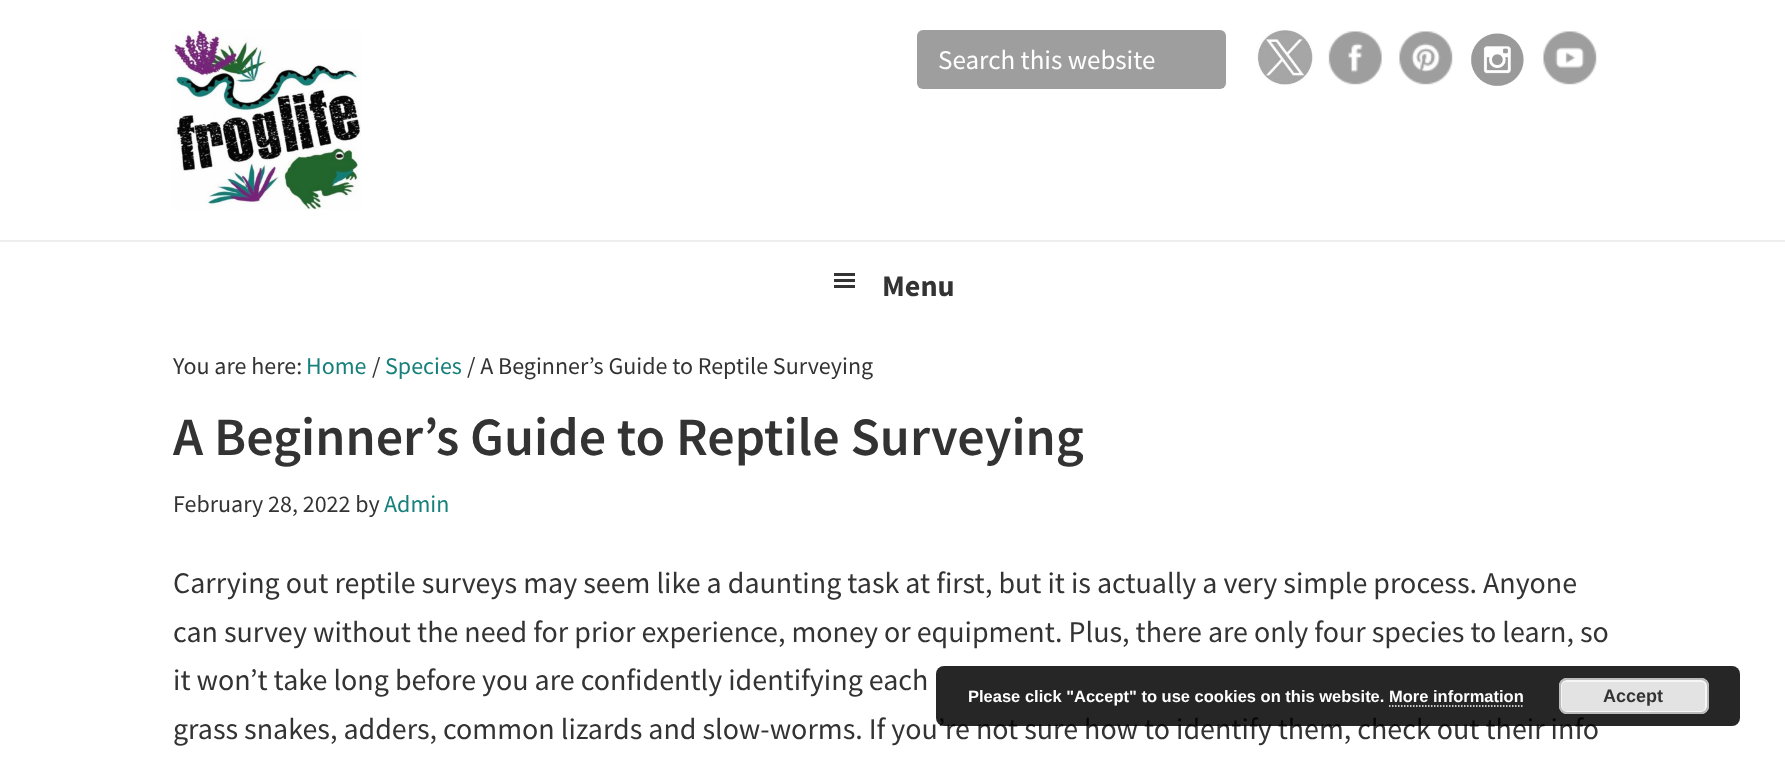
(async () => {
    const canvas = document.querySelector("canvas");
    canvas.width = 1785;
    canvas.height = 771;
    const context = canvas.getContext("2d");
    context.miterLimit = 4;
    context.fontKerning = "normal";
    function write(s, x, y, font, color) {
        context.font = font;
        context.fillStyle = color;
        context.fillText(s, x, y);
    }
    function block(x, y, w, h, color) {
        context.fillStyle = color;
        context.fillRect(x, y, w, h);
    }
    function card(x, y, w, h, r, color) {
        context.fillStyle = color;
        context.beginPath();
        context.roundRect(x, y, w, h, r);
        context.fill();
    }
    async function photo(src, x, y, w, h) {
        const img = new Image();
        img.src = src;
        await img.decode();
        context.drawImage(img, x, y, w, h);
    }

    block(0, 0, 1785, 771, "rgb(255, 255, 255)");
    await photo("media/1.png", 172, 30, 189, 180);
    card(917, 30, 309, 59, 6, "rgb(158, 158, 158)");
    write("Search this website", 938, 69, "27px Source Sans Pro", "rgb(255, 255, 255)");
    await photo("media/2.png", 1257, 30, 56, 55);
    await photo("media/3.png", 1328, 31, 54, 54);
    await photo("media/4.png", 1399, 31, 54, 54);
    await photo("media/5.png", 1471, 33, 53, 53);
    await photo("media/6.png", 1543, 31, 54, 54);
    block(0, 240, 1785, 2, "rgb(238, 238, 238)");
    await photo("media/7.png", 834, 273, 21, 15);
    write("Menu", 882, 296, "bold 30px Source Sans Pro", "rgb(51, 51, 51)");
    write("You are here:", 173, 374, "24px Source Sans Pro", "rgb(51, 51, 51)");
    write("Home", 306, 374, "24px Source Sans Pro", "rgb(23, 128, 123)");
    write("/", 372, 374, "24px Source Sans Pro", "rgb(51, 51, 51)");
    write("Species", 385, 374, "24px Source Sans Pro", "rgb(23, 128, 123)");
    write("/ A Beginner’s Guide to Reptile Surveying", 467, 374, "24px Source Sans Pro", "rgb(51, 51, 51)");
    write("A Beginner’s Guide to Reptile Surveying", 173, 455, "600 54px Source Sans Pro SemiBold", "rgb(51, 51, 51)");
    write("February 28, 2022 by", 173, 512, "24px Source Sans Pro", "rgb(51, 51, 51)");
    write("Admin", 384, 512, "24px Source Sans Pro", "rgb(23, 128, 123)");
    write("Carrying out reptile surveys may seem like a daunting task at first, but it is actually a very simple process. Anyone", 173, 593, "30px Source Sans Pro", "rgb(51, 51, 51)");
    write("can survey without the need for prior experience, money or equipment. Plus, there are only four species to learn, so", 173, 642, "30px Source Sans Pro", "rgb(51, 51, 51)");
    write("it won’t take long before you are confidently identifying each", 173, 690, "30px Source Sans Pro", "rgb(51, 51, 51)");
    write("grass snakes, adders, common lizards and slow-worms. If you’re not sure how to identify them, check out their info", 173, 739, "30px Source Sans Pro", "rgb(51, 51, 51)");
    card(936, 666, 804, 60, 8, "rgba(0, 0, 0, 0.85)");
    write("Please click \"Accept\" to use cookies on this website. More information", 968, 702, "bold 16.5px Liberation Sans", "rgb(255, 255, 255)");
    card(1559, 678, 150, 36, 8, "rgb(227, 227, 227)");
    context.beginPath();
    context.roundRect(1561, 681, 145, 31, 5);
    context.strokeStyle = "rgb(246, 246, 246)";
    context.lineWidth = 2;
    context.stroke();
    context.beginPath();
    context.roundRect(1560, 679, 148, 34, 7);
    context.strokeStyle = "rgb(187, 187, 187)";
    context.stroke();
    write("Accept", 1603, 702, "bold 18px Liberation Sans", "rgb(51, 51, 51)");
    context.beginPath();
    context.moveTo(1389, 706);
    context.lineTo(1524, 706);
    context.strokeStyle = "rgb(255, 255, 255)";
    context.lineWidth = 1.5;
    context.setLineDash([1.5, 1.5]);
    context.stroke();
})();
